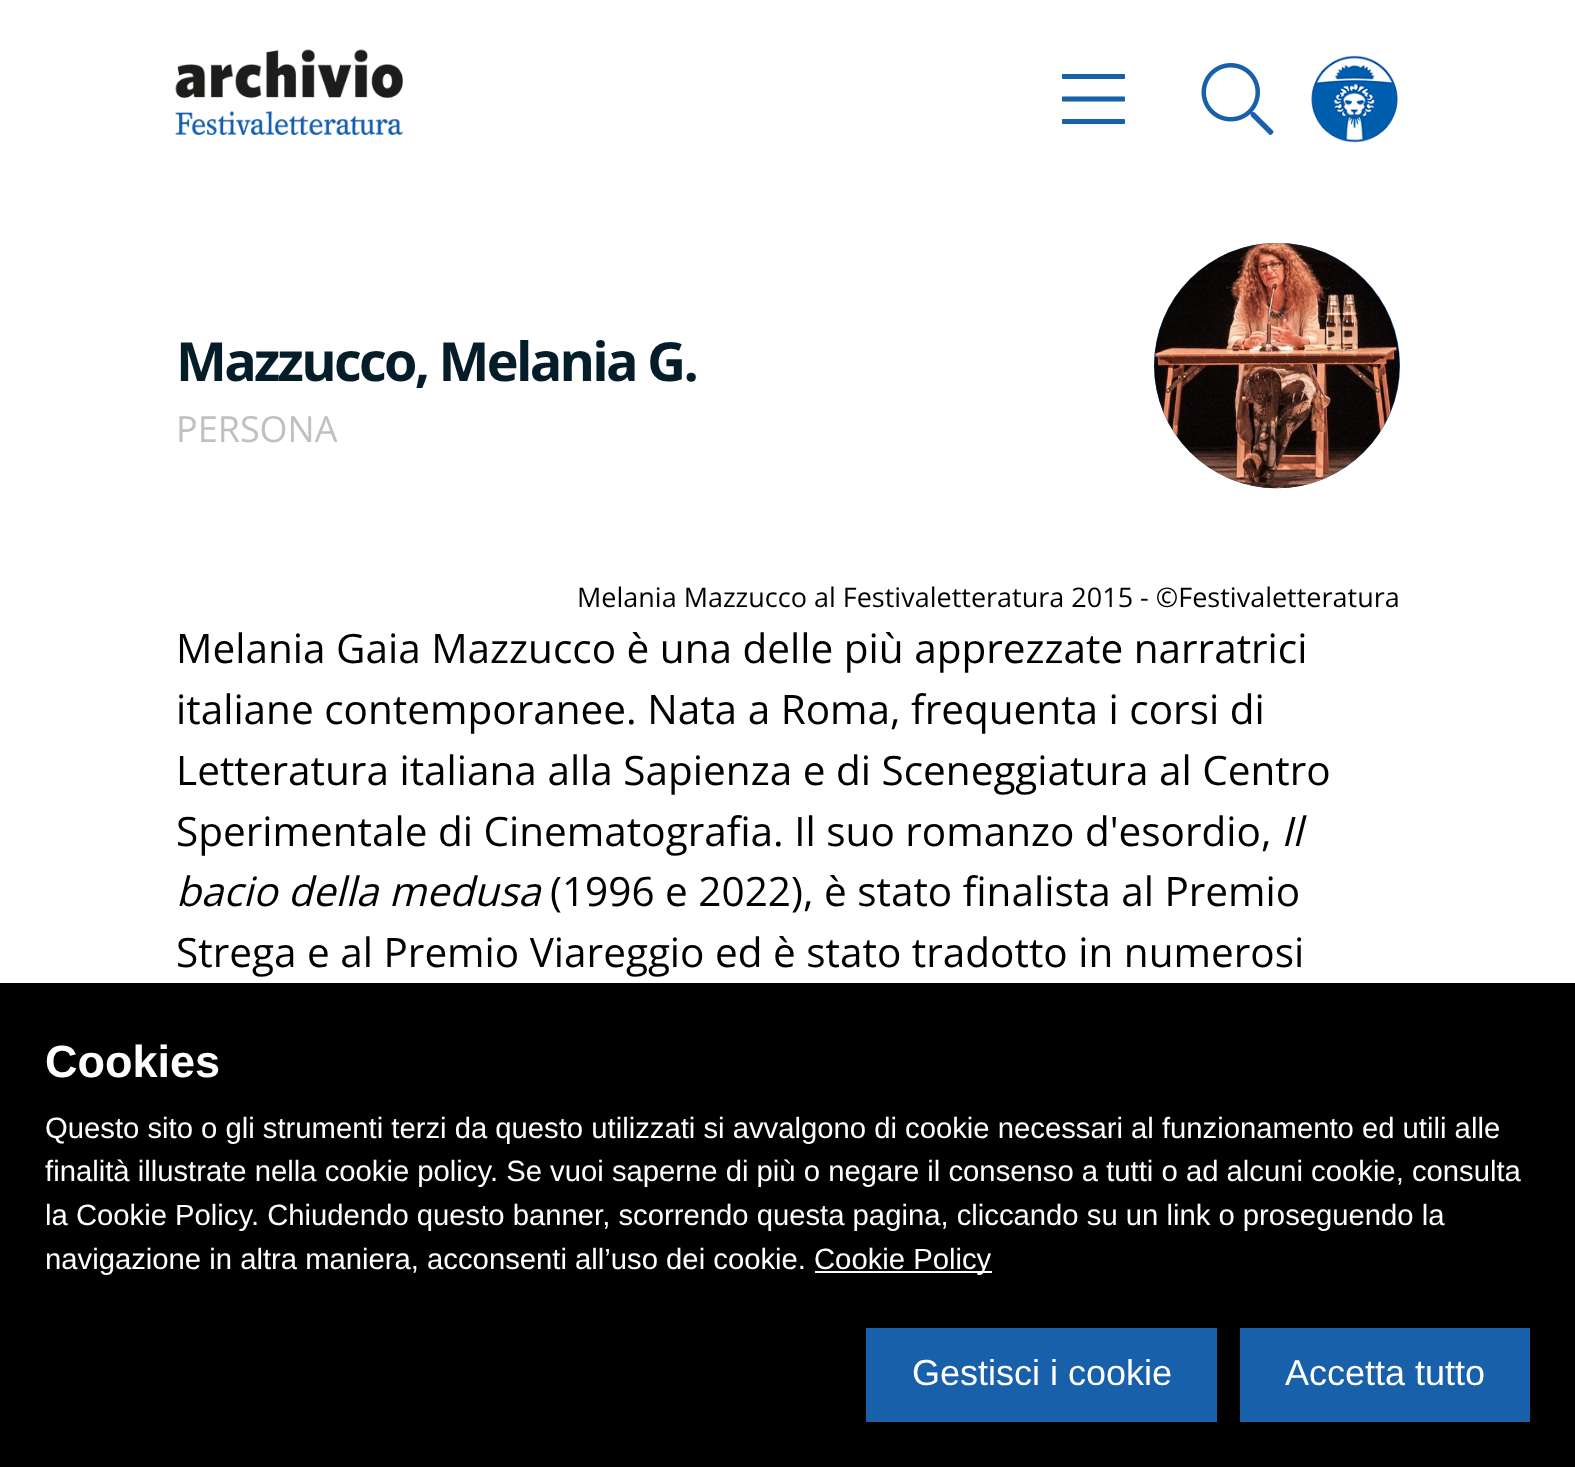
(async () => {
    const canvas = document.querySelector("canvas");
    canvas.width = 1575;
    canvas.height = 1467;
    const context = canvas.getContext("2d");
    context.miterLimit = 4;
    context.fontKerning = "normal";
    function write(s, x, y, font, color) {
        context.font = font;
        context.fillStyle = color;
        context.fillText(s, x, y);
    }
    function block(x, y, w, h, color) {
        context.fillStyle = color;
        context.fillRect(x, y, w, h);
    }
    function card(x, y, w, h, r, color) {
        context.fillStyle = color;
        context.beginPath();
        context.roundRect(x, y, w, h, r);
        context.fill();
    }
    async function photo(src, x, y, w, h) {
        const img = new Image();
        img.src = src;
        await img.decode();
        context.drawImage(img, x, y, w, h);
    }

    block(0, 0, 1575, 1467, "rgb(255, 255, 255)");
    await photo("media/1.png", 175, 49, 228, 86);
    await photo("media/2.png", 1062, 74, 63, 50);
    await photo("media/3.png", 1201, 63, 73, 72);
    await photo("media/4.png", 1311, 55, 87, 88);
    context.letterSpacing = "-2.75px";
    write("Mazzucco, Melania G.", 176, 381, "bold 54px Open Sans", "rgb(4, 29, 41)");
    context.letterSpacing = "0px";
    write("PERSONA", 176, 442, "36px Open Sans", "rgb(192, 192, 192)");
    card(1154, 243, 246, 245, 122.5, "rgb(25, 96, 171)");
    await photo("media/5.png", 1154, 243, 246, 246);
    write("Melania Mazzucco al Festivaletteratura 2015 - ©Festivaletteratura", 577, 607, "27px Open Sans", "rgb(0, 0, 0)");
    write("Melania Gaia Mazzucco è una delle più apprezzate narratrici", 176, 663, "40.5px Open Sans", "rgb(0, 0, 0)");
    write("italiane contemporanee. Nata a Roma, frequenta i corsi di", 176, 724, "40.5px Open Sans", "rgb(0, 0, 0)");
    write("Letteratura italiana alla Sapienza e di Sceneggiatura al Centro", 176, 785, "40.5px Open Sans", "rgb(0, 0, 0)");
    write("Sperimentale di Cinematografia. Il suo romanzo d'esordio,", 176, 846, "40.5px Open Sans", "rgb(0, 0, 0)");
    write("Il", 1281, 846, "italic 40.5px Open Sans", "rgb(0, 0, 0)");
    write("bacio della medusa", 176, 906, "italic 40.5px Open Sans", "rgb(0, 0, 0)");
    write("(1996 e 2022), è stato finalista al Premio", 550, 906, "40.5px Open Sans", "rgb(0, 0, 0)");
    write("Strega e al Premio Viareggio ed è stato tradotto in numerosi", 176, 967, "40.5px Open Sans", "rgb(0, 0, 0)");
    block(0, 983, 1575, 484, "rgb(0, 0, 0)");
    write("Cookies", 45, 1077, "bold 45px Liberation Sans", "rgb(255, 255, 255)");
    write("Questo sito o gli strumenti terzi da questo utilizzati si avvalgono di cookie necessari al funzionamento ed utili alle", 45, 1138, "29.25px Liberation Sans", "rgb(255, 255, 255)");
    write("finalità illustrate nella cookie policy. Se vuoi saperne di più o negare il consenso a tutti o ad alcuni cookie, consulta", 45, 1181, "29.25px Liberation Sans", "rgb(255, 255, 255)");
    write("la Cookie Policy. Chiudendo questo banner, scorrendo questa pagina, cliccando su un link o proseguendo la", 45, 1225, "29.25px Liberation Sans", "rgb(255, 255, 255)");
    write("navigazione in altra maniera, acconsenti all’uso dei cookie.", 45, 1269, "29.25px Liberation Sans", "rgb(255, 255, 255)");
    block(815, 1271, 177, 2, "rgb(255, 255, 255)");
    write("Cookie Policy", 814, 1269, "29.25px Liberation Sans", "rgb(255, 255, 255)");
    block(866, 1328, 351, 94, "rgb(25, 96, 171)");
    write("Gestisci i cookie", 912, 1385, "36px Liberation Sans", "rgb(255, 255, 255)");
    block(1240, 1328, 290, 94, "rgb(25, 96, 171)");
    write("Accetta tutto", 1285, 1385, "36px Liberation Sans", "rgb(255, 255, 255)");
})();
